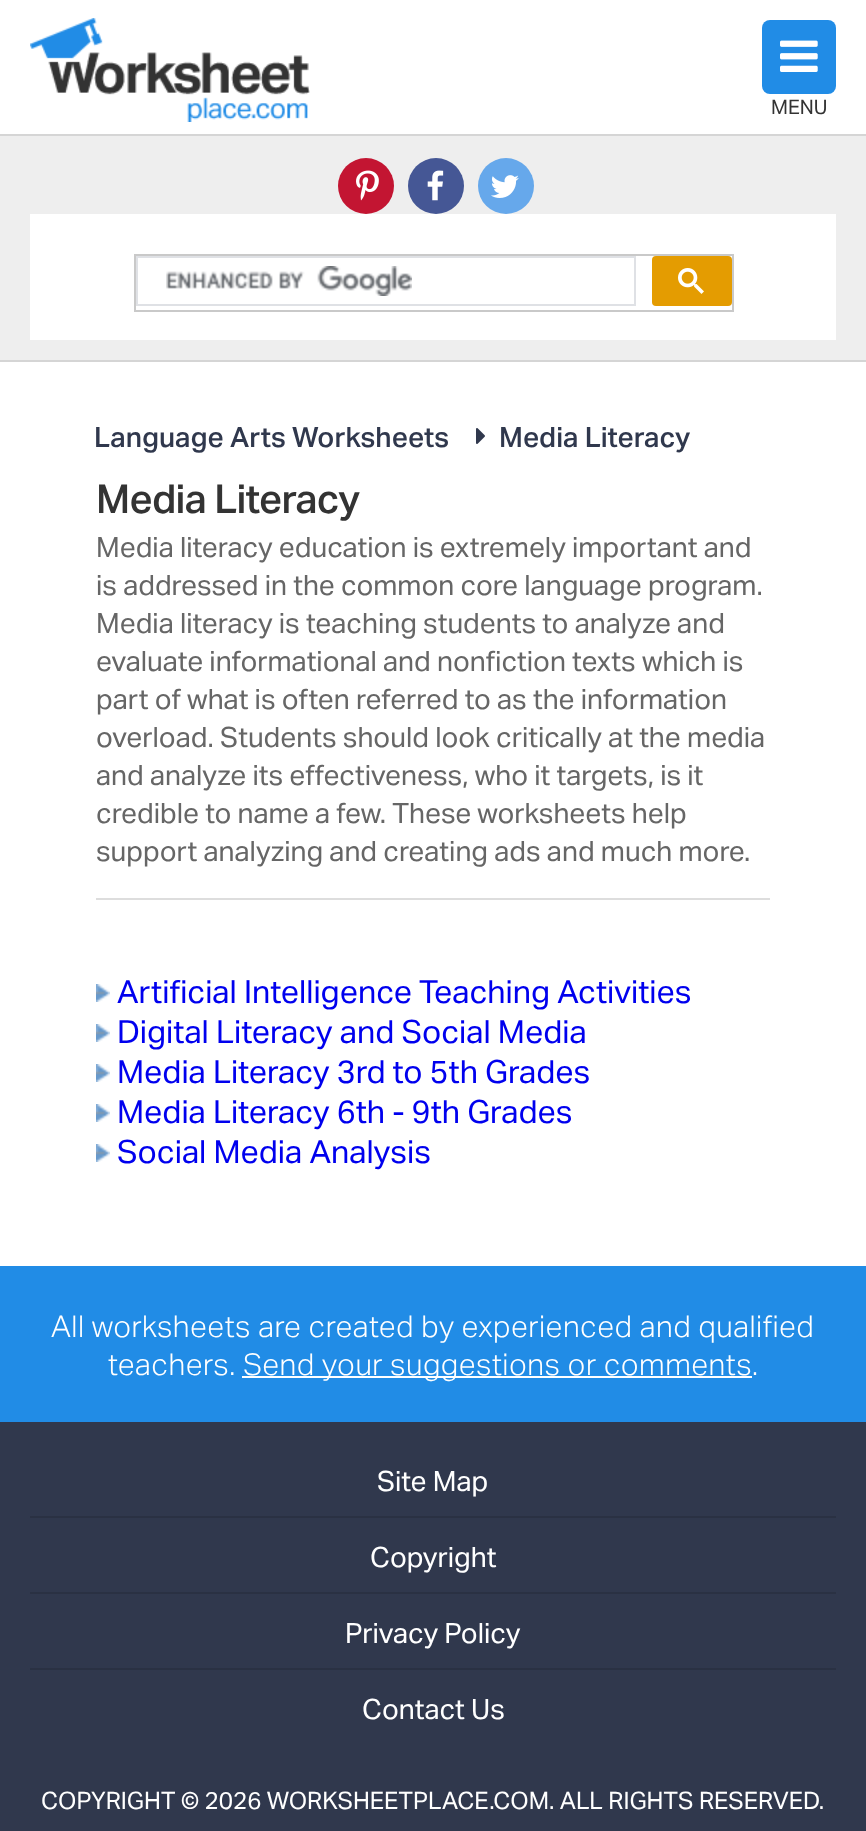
(async () => {
    const canvas = document.querySelector("canvas");
    canvas.width = 866;
    canvas.height = 1831;
    const context = canvas.getContext("2d");
    context.miterLimit = 4;
    context.fontKerning = "normal";
    function write(s, x, y, font, color) {
        context.font = font;
        context.fillStyle = color;
        context.fillText(s, x, y);
    }
    function block(x, y, w, h, color) {
        context.fillStyle = color;
        context.fillRect(x, y, w, h);
    }
    function card(x, y, w, h, r, color) {
        context.fillStyle = color;
        context.beginPath();
        context.roundRect(x, y, w, h, r);
        context.fill();
    }
    async function photo(src, x, y, w, h) {
        const img = new Image();
        img.src = src;
        await img.decode();
        context.drawImage(img, x, y, w, h);
    }

    block(0, 0, 866, 1831, "rgb(255, 255, 255)");
    block(0, 134, 866, 2, "rgb(213, 213, 213)");
    await photo("media/1.png", 30, 18, 280, 104);
    card(762, 20, 74, 74, 8, "rgb(33, 140, 230)");
    await photo("media/2.png", 780, 40, 38, 32);
    write("MENU", 771, 114, "20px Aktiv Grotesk", "rgb(51, 51, 51)");
    block(0, 136, 866, 224, "rgb(238, 238, 238)");
    block(0, 360, 866, 2, "rgb(213, 213, 213)");
    context.fillStyle = "rgb(195, 21, 50)";
    context.beginPath();
    context.arc(366, 186, 28, 0, Math.PI * 2);
    context.fill();
    await photo("media/3.png", 356, 170, 23, 31);
    context.fillStyle = "rgb(69, 87, 149)";
    context.beginPath();
    context.arc(436, 186, 28, 0, Math.PI * 2);
    context.fill();
    await photo("media/4.png", 427, 170, 17, 31);
    context.fillStyle = "rgb(102, 168, 235)";
    context.beginPath();
    context.arc(506, 186, 28, 0, Math.PI * 2);
    context.fill();
    await photo("media/5.png", 491, 175, 28, 23);
    block(30, 214, 806, 126, "rgb(255, 255, 255)");
    context.strokeStyle = "rgb(201, 201, 201)";
    context.lineWidth = 2;
    context.strokeRect(135, 255, 598, 56);
    context.strokeStyle = "rgb(223, 225, 229)";
    context.strokeRect(137, 257, 498, 48);
    await photo("media/6.png", 166, 266, 246, 30);
    card(652, 256, 80, 50, 4, "rgb(228, 156, 1)");
    await photo("media/7.png", 678, 268, 26, 26);
    write("Language Arts Worksheets", 94, 447, "500 28px Aktiv Grotesk", "rgb(48, 56, 77)");
    await photo("media/8.png", 476, 428, 9, 16);
    write("Media Literacy", 499, 447, "500 28px Aktiv Grotesk", "rgb(48, 56, 77)");
    context.letterSpacing = "-0.7px";
    write("Media Literacy", 96, 513, "500 40px Aktiv Grotesk", "rgb(51, 51, 51)");
    block(96, 898, 674, 2, "rgb(221, 221, 221)");
    context.letterSpacing = "0px";
    write("Media literacy education is extremely important and", 96, 557, "28px Aktiv Grotesk", "rgb(102, 102, 102)");
    write("is addressed in the common core language program.", 96, 595, "28px Aktiv Grotesk", "rgb(102, 102, 102)");
    write("Media literacy is teaching students to analyze and", 96, 633, "28px Aktiv Grotesk", "rgb(102, 102, 102)");
    write("evaluate informational and nonfiction texts which is", 96, 671, "28px Aktiv Grotesk", "rgb(102, 102, 102)");
    write("part of what is often referred to as the information", 96, 709, "28px Aktiv Grotesk", "rgb(102, 102, 102)");
    write("overload. Students should look critically at the media", 96, 747, "28px Aktiv Grotesk", "rgb(102, 102, 102)");
    write("and analyze its effectiveness, who it targets, is it", 96, 785, "28px Aktiv Grotesk", "rgb(102, 102, 102)");
    write("credible to name a few. These worksheets help", 96, 823, "28px Aktiv Grotesk", "rgb(102, 102, 102)");
    write("support analyzing and creating ads and much more.", 96, 861, "28px Aktiv Grotesk", "rgb(102, 102, 102)");
    await photo("media/9.png", 96, 984, 14, 18);
    write("Artificial Intelligence Teaching Activities", 117, 1003, "32px Aktiv Grotesk", "rgb(0, 0, 238)");
    await photo("media/9.png", 96, 1024, 14, 18);
    write("Digital Literacy and Social Media", 117, 1043, "32px Aktiv Grotesk", "rgb(0, 0, 238)");
    await photo("media/9.png", 96, 1064, 14, 18);
    write("Media Literacy 3rd to 5th Grades", 117, 1083, "32px Aktiv Grotesk", "rgb(0, 0, 238)");
    await photo("media/9.png", 96, 1104, 14, 18);
    write("Media Literacy 6th - 9th Grades", 117, 1123, "32px Aktiv Grotesk", "rgb(0, 0, 238)");
    await photo("media/9.png", 96, 1144, 14, 18);
    write("Social Media Analysis", 117, 1163, "32px Aktiv Grotesk", "rgb(0, 0, 238)");
    block(0, 1266, 866, 156, "rgb(33, 140, 230)");
    context.letterSpacing = "0.5px";
    write("All worksheets are created by experienced and qualified", 51, 1337, "300 30px Aktiv Grotesk", "rgb(255, 255, 255)");
    write("teachers.", 108, 1375, "300 30px Aktiv Grotesk", "rgb(255, 255, 255)");
    block(242, 1376, 510, 2, "rgb(255, 255, 255)");
    write("Send your suggestions or comments", 243, 1375, "300 30px Aktiv Grotesk", "rgb(255, 255, 255)");
    write(".", 752, 1375, "300 30px Aktiv Grotesk", "rgb(255, 255, 255)");
    block(0, 1422, 866, 409, "rgb(48, 56, 77)");
    block(30, 1516, 806, 2, "rgb(42, 49, 67)");
    context.letterSpacing = "0px";
    write("Site Map", 377, 1491, "28px Aktiv Grotesk", "rgb(255, 255, 255)");
    block(30, 1592, 806, 2, "rgb(42, 49, 67)");
    write("Copyright", 370, 1567, "28px Aktiv Grotesk", "rgb(255, 255, 255)");
    block(30, 1668, 806, 2, "rgb(42, 49, 67)");
    write("Privacy Policy", 345, 1643, "28px Aktiv Grotesk", "rgb(255, 255, 255)");
    write("Contact Us", 362, 1719, "28px Aktiv Grotesk", "rgb(255, 255, 255)");
    write("COPYRIGHT © 2026 WORKSHEETPLACE.COM. ALL RIGHTS RESERVED.", 41, 1809, "24px Aktiv Grotesk", "rgb(255, 255, 255)");
})();
